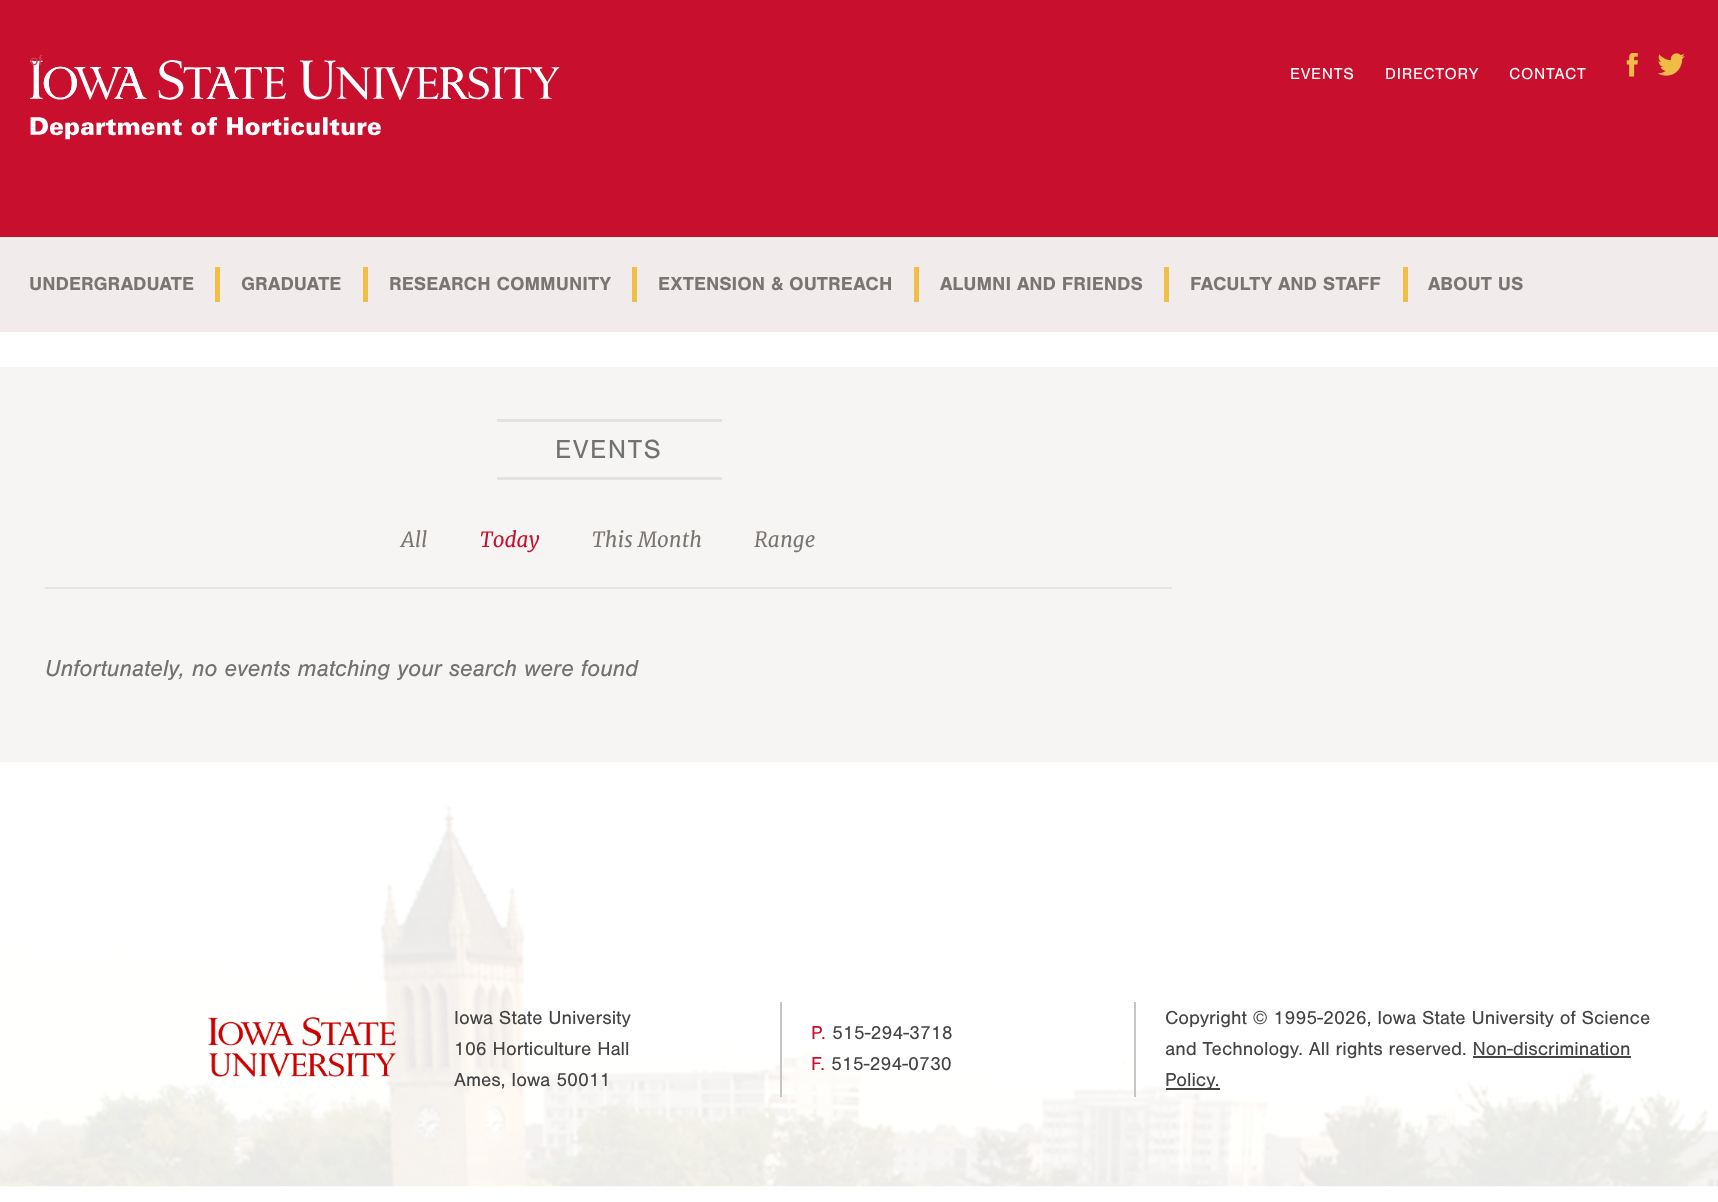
(async () => {
    const canvas = document.querySelector("canvas");
    canvas.width = 1718;
    canvas.height = 1202;
    const context = canvas.getContext("2d");
    context.miterLimit = 4;
    context.fontKerning = "normal";
    function write(s, x, y, font, color) {
        context.font = font;
        context.fillStyle = color;
        context.fillText(s, x, y);
    }
    function block(x, y, w, h, color) {
        context.fillStyle = color;
        context.fillRect(x, y, w, h);
    }
    async function photo(src, x, y, w, h) {
        const img = new Image();
        img.src = src;
        await img.decode();
        context.drawImage(img, x, y, w, h);
    }

    block(0, 0, 1718, 1202, "rgb(255, 255, 255)");
    block(0, 0, 1718, 237, "rgb(200, 16, 46)");
    await photo("media/1.png", 30, 60, 530, 80);
    write("of", 30, 65, "15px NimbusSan", "rgb(210, 61, 85)");
    context.letterSpacing = "0.75px";
    write("EVENTS", 1290, 79, "16.5px NimbusSan", "rgb(255, 255, 255)");
    write("DIRECTORY", 1385, 79, "16.5px NimbusSan", "rgb(255, 255, 255)");
    write("CONTACT", 1509, 79, "16.5px NimbusSan", "rgb(255, 255, 255)");
    await photo("media/2.png", 1626, 53, 12, 24);
    await photo("media/3.png", 1658, 53, 27, 23);
    block(0, 237, 1718, 95, "rgb(241, 235, 235)");
    block(215, 267, 5, 35, "rgb(241, 190, 72)");
    context.letterSpacing = "0px";
    write("UNDERGRADUATE", 29, 290, "bold 19.5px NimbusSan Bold", "rgb(121, 118, 114)");
    block(363, 267, 5, 35, "rgb(241, 190, 72)");
    write("GRADUATE", 241, 290, "bold 19.5px NimbusSan Bold", "rgb(121, 118, 114)");
    block(632, 267, 5, 35, "rgb(241, 190, 72)");
    write("RESEARCH COMMUNITY", 389, 290, "bold 19.5px NimbusSan Bold", "rgb(121, 118, 114)");
    block(914, 267, 5, 35, "rgb(241, 190, 72)");
    write("EXTENSION & OUTREACH", 658, 290, "bold 19.5px NimbusSan Bold", "rgb(121, 118, 114)");
    block(1164, 267, 5, 35, "rgb(241, 190, 72)");
    write("ALUMNI AND FRIENDS", 940, 290, "bold 19.5px NimbusSan Bold", "rgb(121, 118, 114)");
    block(1403, 267, 5, 35, "rgb(241, 190, 72)");
    write("FACULTY AND STAFF", 1190, 290, "bold 19.5px NimbusSan Bold", "rgb(121, 118, 114)");
    write("ABOUT US", 1428, 290, "bold 19.5px NimbusSan Bold", "rgb(121, 118, 114)");
    block(0, 367, 1718, 395, "rgb(247, 244, 244)");
    block(497, 419, 225, 3, "rgb(230, 225, 225)");
    context.letterSpacing = "1.5px";
    write("EVENTS", 555, 458, "27px NimbusSan", "rgb(112, 115, 114)");
    block(497, 477, 225, 3, "rgb(230, 225, 225)");
    block(45, 587, 1127, 2, "rgb(228, 228, 228)");
    context.letterSpacing = "0px";
    write("All", 401, 547, "italic 21px Merriweather", "rgb(121, 118, 114)");
    write("Today", 480, 547, "italic 21px Merriweather", "rgb(200, 16, 46)");
    write("This Month", 592, 547, "italic 21px Merriweather", "rgb(121, 118, 114)");
    write("Range", 754, 547, "italic 21px Merriweather", "rgb(121, 118, 114)");
    write("Unfortunately, no events matching your search were found", 45, 676, "italic 24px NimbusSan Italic", "rgb(112, 115, 114)");
    await photo("media/4.png", 0, 806, 1718, 381);
    await photo("media/5.png", 208, 1017, 188, 60);
    write("Iowa State University", 454, 1024, "19.5px NimbusSan", "rgb(68, 68, 68)");
    write("106 Horticulture Hall", 454, 1055, "19.5px NimbusSan", "rgb(68, 68, 68)");
    write("Ames, Iowa 50011", 454, 1086, "19.5px NimbusSan", "rgb(68, 68, 68)");
    block(1134, 1002, 2, 95, "rgb(199, 197, 195)");
    block(780, 1002, 2, 95, "rgb(199, 197, 195)");
    write("P.", 811, 1039, "19.5px NimbusSan", "rgb(200, 16, 46)");
    write("515-294-3718", 832, 1039, "19.5px NimbusSan", "rgb(68, 68, 68)");
    write("F.", 811, 1070, "19.5px NimbusSan", "rgb(200, 16, 46)");
    write("515-294-0730", 831, 1070, "19.5px NimbusSan", "rgb(68, 68, 68)");
    write("Copyright © 1995-2026, Iowa State University of Science", 1165, 1024, "19.5px NimbusSan", "rgb(68, 68, 68)");
    write("and Technology. All rights reserved. Non-discrimination", 1165, 1055, "19.5px NimbusSan", "rgb(68, 68, 68)");
    block(1166, 1088, 54, 2, "rgb(68, 68, 68)");
    write("Policy.", 1165, 1086, "19.5px NimbusSan", "rgb(68, 68, 68)");
    block(1473, 1056, 158, 2, "rgb(68, 68, 68)");
})();
